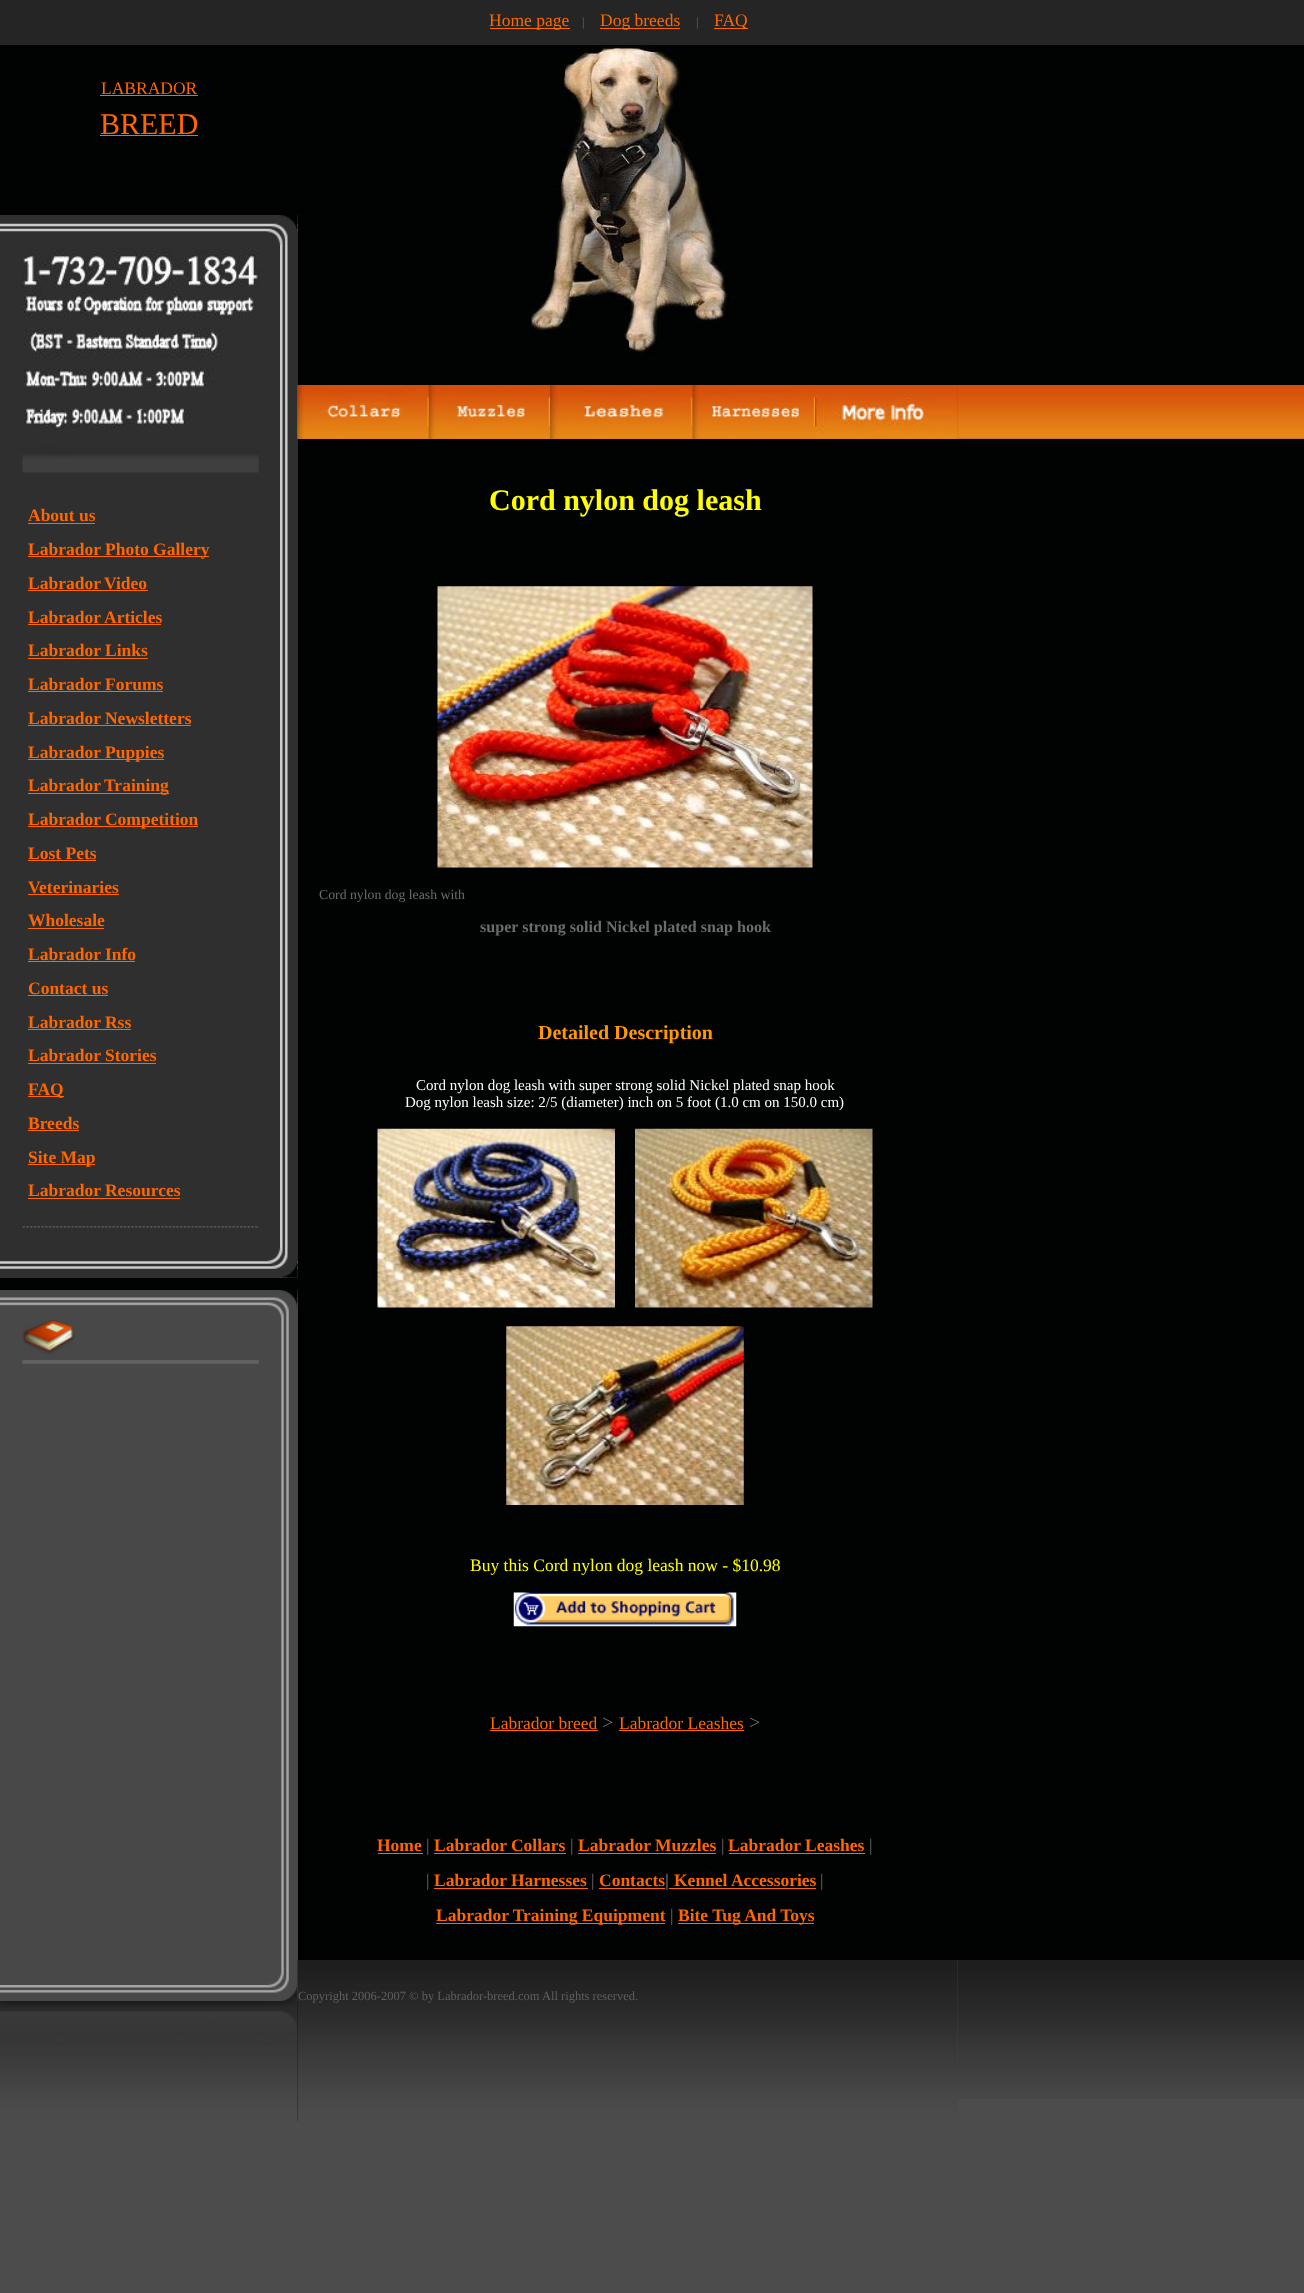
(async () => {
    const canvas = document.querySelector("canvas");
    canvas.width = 1304;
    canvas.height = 2293;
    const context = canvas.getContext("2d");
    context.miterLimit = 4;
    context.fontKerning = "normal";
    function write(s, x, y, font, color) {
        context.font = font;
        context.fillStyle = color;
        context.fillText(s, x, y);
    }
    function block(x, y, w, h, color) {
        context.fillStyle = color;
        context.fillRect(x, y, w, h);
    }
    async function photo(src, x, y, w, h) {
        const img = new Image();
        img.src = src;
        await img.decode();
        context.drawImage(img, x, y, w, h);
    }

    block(0, 0, 1304, 2293, "rgb(76, 76, 76)");
    block(0, 45, 298, 2076, "rgb(1, 3, 2)");
    block(0, 0, 1304, 45, "rgb(37, 37, 37)");
    write("LABRADOR", 101, 94, "17.5px Liberation Serif", "rgb(255, 102, 0)");
    block(100, 95, 98, 1, "rgb(255, 102, 0)");
    write("BREED", 100, 134, "30px Liberation Serif", "rgb(255, 102, 0)");
    block(100, 135, 98, 1, "rgb(255, 102, 0)");
    block(0, 215, 298, 1063, "rgb(47, 47, 47)");
    await photo("media/1.png", 280, 245, 8, 1033);
    await photo("media/2.png", 0, 1261, 298, 17);
    await photo("media/3.png", 0, 215, 298, 17);
    await photo("media/4.png", 266, 1247, 32, 31);
    await photo("media/5.png", 266, 215, 32, 30);
    await photo("media/6.png", 22, 247, 237, 226);
    write("About us", 28, 521, "bold 17.5px Liberation Serif", "rgb(255, 102, 0)");
    block(28, 523, 67, 1, "rgb(255, 102, 0)");
    block(28, 556, 181, 1, "rgb(255, 102, 0)");
    write("Labrador Photo Gallery", 28, 555, "bold 17.5px Liberation Serif", "rgb(255, 102, 0)");
    write("Labrador", 28, 589, "bold 17.5px Liberation Serif", "rgb(255, 102, 0)");
    block(28, 590, 120, 1, "rgb(255, 102, 0)");
    write("Video", 104, 589, "bold 17.5px Liberation Serif", "rgb(255, 102, 0)");
    write("Labrador", 28, 623, "bold 17.5px Liberation Serif", "rgb(255, 102, 0)");
    block(28, 624, 133, 1, "rgb(255, 102, 0)");
    write("Articles", 104, 623, "bold 17.5px Liberation Serif", "rgb(255, 102, 0)");
    write("Labrador Links", 28, 656, "bold 17.5px Liberation Serif", "rgb(255, 102, 0)");
    block(28, 658, 120, 1, "rgb(255, 102, 0)");
    write("Labrador Forums", 28, 690, "bold 17.5px Liberation Serif", "rgb(255, 102, 0)");
    block(28, 691, 135, 1, "rgb(255, 102, 0)");
    write("Labrador Newsletters", 28, 724, "bold 17.5px Liberation Serif", "rgb(255, 102, 0)");
    block(28, 725, 163, 1, "rgb(255, 102, 0)");
    block(28, 759, 136, 1, "rgb(255, 102, 0)");
    write("Labrador Puppies", 28, 758, "bold 17.5px Liberation Serif", "rgb(255, 102, 0)");
    write("Labrador", 28, 791, "bold 17.5px Liberation Serif", "rgb(255, 102, 0)");
    block(28, 793, 141, 1, "rgb(255, 102, 0)");
    write("Training", 104, 791, "bold 17.5px Liberation Serif", "rgb(255, 102, 0)");
    block(28, 826, 170, 1, "rgb(255, 102, 0)");
    write("Labrador Competition", 28, 825, "bold 17.5px Liberation Serif", "rgb(255, 102, 0)");
    write("Lost Pets", 28, 859, "bold 17.5px Liberation Serif", "rgb(255, 102, 0)");
    block(28, 860, 68, 1, "rgb(255, 102, 0)");
    write("Veterinaries", 28, 893, "bold 17.5px Liberation Serif", "rgb(255, 102, 0)");
    block(28, 894, 91, 1, "rgb(255, 102, 0)");
    write("Wholesale", 28, 926, "bold 17.5px Liberation Serif", "rgb(255, 102, 0)");
    block(28, 928, 76, 1, "rgb(255, 102, 0)");
    write("Labrador Info", 28, 960, "bold 17.5px Liberation Serif", "rgb(255, 102, 0)");
    block(28, 961, 107, 1, "rgb(255, 102, 0)");
    write("Contact us", 28, 994, "bold 17.5px Liberation Serif", "rgb(255, 102, 0)");
    block(28, 995, 80, 1, "rgb(255, 102, 0)");
    write("Labrador Rss", 28, 1028, "bold 17.5px Liberation Serif", "rgb(255, 102, 0)");
    block(28, 1029, 103, 1, "rgb(255, 102, 0)");
    write("Labrador Stories", 28, 1061, "bold 17.5px Liberation Serif", "rgb(255, 102, 0)");
    block(28, 1063, 128, 1, "rgb(255, 102, 0)");
    block(28, 1096, 36, 1, "rgb(255, 102, 0)");
    write("FAQ", 28, 1095, "bold 17.5px Liberation Serif", "rgb(255, 102, 0)");
    write("Breeds", 28, 1129, "bold 17.5px Liberation Serif", "rgb(255, 102, 0)");
    block(28, 1130, 51, 1, "rgb(255, 102, 0)");
    block(28, 1164, 67, 1, "rgb(255, 102, 0)");
    write("Site Map", 28, 1163, "bold 17.5px Liberation Serif", "rgb(255, 102, 0)");
    write("Labrador Resources", 28, 1196, "bold 17.5px Liberation Serif", "rgb(255, 102, 0)");
    block(28, 1198, 152, 1, "rgb(255, 102, 0)");
    await photo("media/7.png", 22, 1226, 237, 2);
    block(0, 1290, 298, 711, "rgb(72, 72, 72)");
    await photo("media/8.png", 280, 1290, 18, 712);
    await photo("media/9.png", 0, 1985, 298, 17);
    await photo("media/10.png", 0, 1290, 298, 17);
    await photo("media/11.png", 266, 1972, 32, 30);
    await photo("media/12.png", 268, 1290, 30, 28);
    await photo("media/13.png", 22, 1320, 237, 44);
    await photo("media/14.png", 0, 2001, 298, 120);
    block(490, 28, 80, 1, "rgb(255, 102, 0)");
    write("Home page", 489, 26, "17.5px Liberation Serif", "rgb(255, 102, 0)");
    write("|", 582, 26, "12.5px Liberation Serif", "rgb(102, 102, 102)");
    block(600, 28, 80, 1, "rgb(255, 102, 0)");
    write("Dog breeds", 600, 26, "17.5px Liberation Serif", "rgb(255, 102, 0)");
    write("|", 696, 26, "12.5px Liberation Serif", "rgb(102, 102, 102)");
    block(714, 28, 34, 1, "rgb(255, 102, 0)");
    write("FAQ", 714, 26, "17.5px Liberation Serif", "rgb(255, 102, 0)");
    block(298, 45, 1006, 340, "rgb(1, 3, 2)");
    await photo("media/15.png", 531, 45, 201, 311);
    await photo("media/16.png", 297, 385, 661, 54);
    await photo("media/17.png", 297, 385, 132, 54);
    await photo("media/18.png", 428, 385, 122, 54);
    await photo("media/19.png", 550, 385, 143, 54);
    await photo("media/20.png", 692, 385, 123, 54);
    await photo("media/28.png", 957, 385, 347, 54);
    await photo("media/21.png", 815, 385, 143, 54);
    block(298, 439, 1006, 1521, "rgb(1, 3, 2)");
    write("Cord nylon dog leash", 489, 510, "bold 30px Liberation Serif", "rgb(255, 255, 0)");
    await photo("media/22.png", 437, 586, 376, 282);
    write("Cord nylon dog leash with", 319, 899, "13.75px Liberation Serif", "rgb(108, 108, 108)");
    write("super strong solid Nickel plated snap hook", 480, 932, "bold 16.1px Liberation Serif", "rgb(108, 108, 108)");
    write("Detailed Description", 538, 1039, "bold 20px Liberation Serif", "rgb(255, 153, 0)");
    write("Cord nylon dog leash with super strong solid Nickel plated snap hook", 416, 1090, "15px Liberation Serif", "rgb(255, 255, 255)");
    write("Dog nylon leash size: 2/5 (diameter) inch on 5 foot (1.0 cm on 150.0 cm)", 405, 1107, "15px Liberation Serif", "rgb(255, 255, 255)");
    await photo("media/23.png", 377, 1128, 238, 180);
    await photo("media/24.png", 635, 1128, 238, 180);
    await photo("media/25.png", 506, 1326, 238, 179);
    write("Buy this Cord nylon dog leash now - $10.98", 470, 1571, "17.5px Liberation Serif", "rgb(255, 255, 0)");
    await photo("media/26.png", 513, 1592, 224, 35);
    write("Labrador breed", 490, 1729, "17.5px Liberation Serif", "rgb(255, 102, 0)");
    block(490, 1730, 108, 1, "rgb(255, 102, 0)");
    write(">", 602, 1729, "20px Liberation Serif", "rgb(108, 108, 108)");
    write("Labrador Leashes", 619, 1729, "17.5px Liberation Serif", "rgb(255, 102, 0)");
    block(619, 1730, 125, 1, "rgb(255, 102, 0)");
    write(">", 749, 1729, "20px Liberation Serif", "rgb(108, 108, 108)");
    write("Home", 377, 1851, "bold 17.5px Liberation Serif", "rgb(255, 102, 0)");
    block(378, 1853, 45, 1, "rgb(255, 102, 0)");
    write("|", 426, 1851, "17.5px Liberation Serif", "rgb(108, 108, 108)");
    write("Labrador Collars", 434, 1851, "bold 17.5px Liberation Serif", "rgb(255, 102, 0)");
    block(434, 1853, 132, 1, "rgb(255, 102, 0)");
    write("|", 570, 1851, "17.5px Liberation Serif", "rgb(108, 108, 108)");
    write("Labrador Muzzles", 578, 1851, "bold 17.5px Liberation Serif", "rgb(255, 102, 0)");
    block(578, 1853, 138, 1, "rgb(255, 102, 0)");
    write("|", 721, 1851, "17.5px Liberation Serif", "rgb(108, 108, 108)");
    write("Labrador Leashes", 728, 1851, "bold 17.5px Liberation Serif", "rgb(255, 102, 0)");
    block(729, 1853, 136, 1, "rgb(255, 102, 0)");
    write("|", 869, 1851, "17.5px Liberation Serif", "rgb(108, 108, 108)");
    write("|", 426, 1886, "17.5px Liberation Serif", "rgb(108, 108, 108)");
    write("Labrador Harnesses", 434, 1886, "bold 17.5px Liberation Serif", "rgb(255, 102, 0)");
    block(434, 1888, 154, 1, "rgb(255, 102, 0)");
    write("|", 591, 1886, "17.5px Liberation Serif", "rgb(108, 108, 108)");
    write("Contacts", 599, 1886, "bold 17.5px Liberation Serif", "rgb(255, 102, 0)");
    write("|", 665, 1886, "bold 17.5px Liberation Serif", "rgb(108, 108, 108)");
    block(599, 1888, 66, 1, "rgb(255, 102, 0)");
    block(669, 1888, 147, 1, "rgb(255, 102, 0)");
    write("Kennel Accessories", 674, 1886, "bold 17.5px Liberation Serif", "rgb(255, 102, 0)");
    write("|", 820, 1886, "17.5px Liberation Serif", "rgb(108, 108, 108)");
    block(436, 1923, 229, 1, "rgb(255, 102, 0)");
    write("Labrador Training Equipment", 436, 1921, "bold 17.5px Liberation Serif", "rgb(255, 102, 0)");
    write("|", 670, 1921, "17.5px Liberation Serif", "rgb(108, 108, 108)");
    block(678, 1923, 136, 1, "rgb(255, 102, 0)");
    write("Bite Tug And Toys", 678, 1921, "bold 17.5px Liberation Serif", "rgb(255, 102, 0)");
    await photo("media/27.png", 297, 1960, 661, 161);
    write("Copyright 2006-2007 © by Labrador-breed.com All rights reserved.", 298, 2000, "12.5px Liberation Serif", "rgb(95, 95, 95)");
    await photo("media/29.png", 957, 1960, 347, 139);
})();
